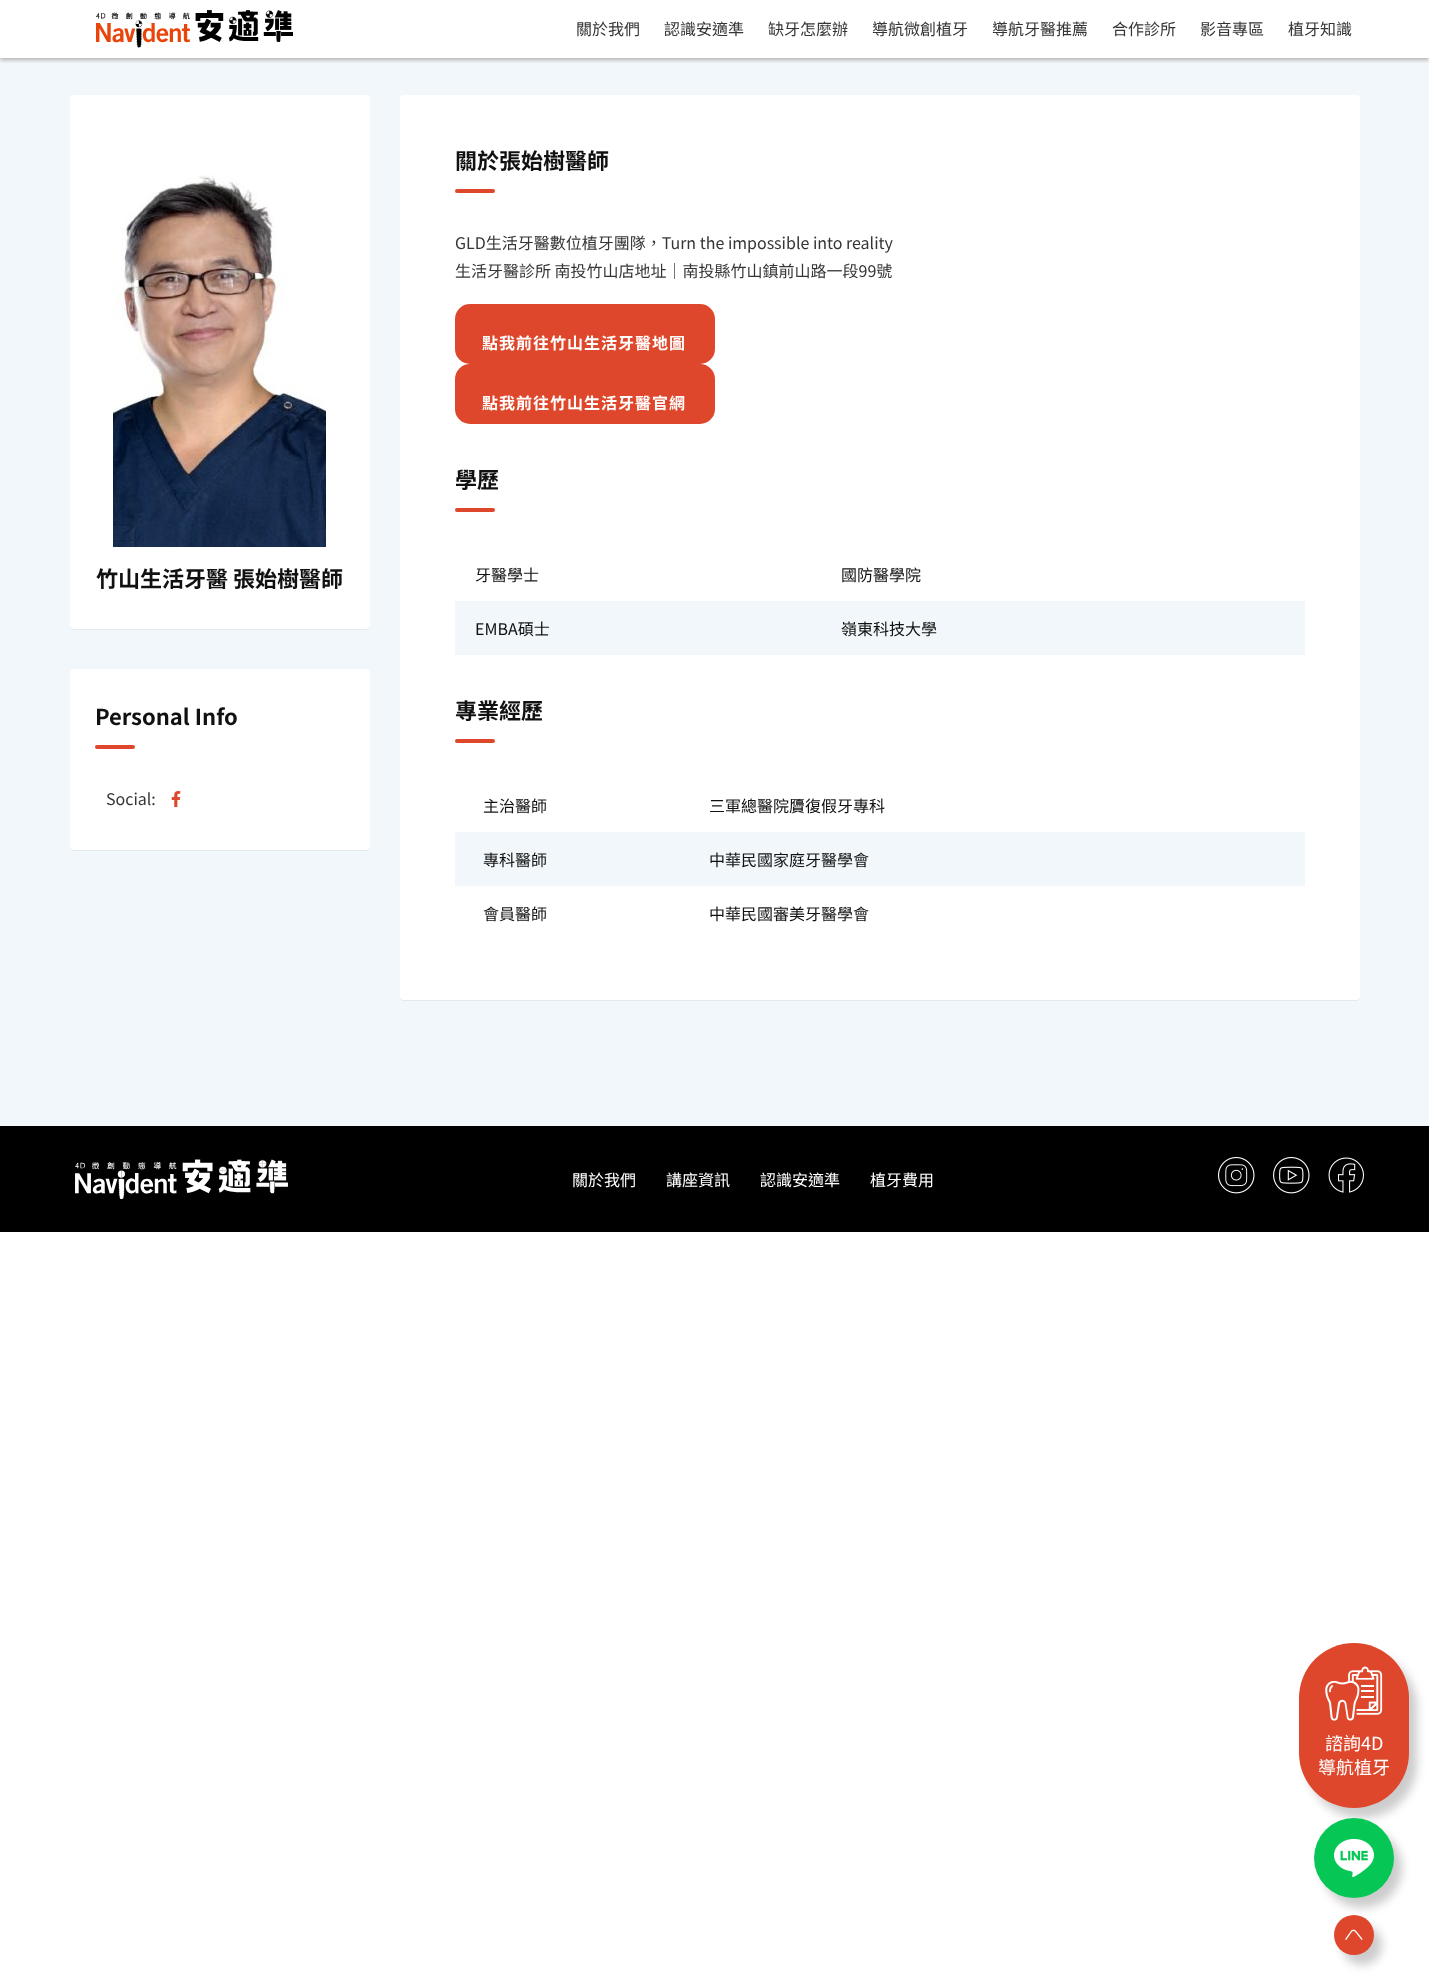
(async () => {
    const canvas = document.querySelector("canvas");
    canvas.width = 1429;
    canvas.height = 1982;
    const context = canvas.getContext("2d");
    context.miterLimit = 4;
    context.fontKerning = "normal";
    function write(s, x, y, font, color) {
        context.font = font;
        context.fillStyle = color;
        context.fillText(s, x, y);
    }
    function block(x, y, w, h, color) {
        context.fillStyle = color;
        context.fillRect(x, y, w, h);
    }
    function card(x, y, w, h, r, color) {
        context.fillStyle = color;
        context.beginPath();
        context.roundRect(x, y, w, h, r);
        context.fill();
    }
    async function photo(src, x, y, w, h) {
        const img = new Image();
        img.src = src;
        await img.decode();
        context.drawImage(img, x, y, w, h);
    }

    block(0, 0, 1429, 1982, "rgb(255, 255, 255)");
    await photo("media/1.png", 96, 10, 197, 38);
    block(0, 58, 1429, 1068, "rgb(241, 247, 250)");
    context.save();
    context.beginPath();
    context.rect(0, 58, 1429, 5);
    context.clip();
    context.fillStyle = "rgba(38, 10, 10, 0.3)";
    context.filter = "blur(2px)";
    context.beginPath();
    context.rect(0, 2, 1429, 58);
    context.fill();
    context.filter = "none";
    context.restore();
    write("關於我們", 576, 35, "100 16px Noto Sans TC", "rgb(53, 53, 53)");
    write("認識安適準", 664, 35, "100 16px Noto Sans TC", "rgb(53, 53, 53)");
    write("缺牙怎麼辦", 768, 35, "100 16px Noto Sans TC", "rgb(53, 53, 53)");
    write("導航微創植牙", 872, 35, "100 16px Noto Sans TC", "rgb(53, 53, 53)");
    write("導航牙醫推薦", 992, 35, "100 16px Noto Sans TC", "rgb(53, 53, 53)");
    write("合作診所", 1112, 35, "100 16px Noto Sans TC", "rgb(53, 53, 53)");
    write("影音專區", 1200, 35, "100 16px Noto Sans TC", "rgb(53, 53, 53)");
    write("植牙知識", 1288, 35, "100 16px Noto Sans TC", "rgb(53, 53, 53)");
    context.fillStyle = "rgb(227, 234, 237)";
    context.beginPath();
    context.moveTo(70, 625);
    context.bezierCurveTo(70, 628, 71, 630, 74, 630);
    context.lineTo(366, 630);
    context.bezierCurveTo(369, 630, 370, 628, 370, 625);
    context.bezierCurveTo(370, 627, 368, 629, 366, 629);
    context.lineTo(74, 629);
    context.bezierCurveTo(72, 629, 70, 627, 70, 625);
    context.closePath();
    context.fill();
    card(70, 95, 300, 534, 4, "rgb(255, 255, 255)");
    await photo("media/2.png", 113, 175, 213, 372);
    write("竹山生活牙醫 張始樹醫師", 96, 587, "bold 22px Noto Sans TC", "rgb(17, 17, 17)");
    context.fillStyle = "rgb(227, 234, 237)";
    context.beginPath();
    context.moveTo(70, 846);
    context.bezierCurveTo(70, 849, 71, 851, 74, 851);
    context.lineTo(366, 851);
    context.bezierCurveTo(369, 851, 370, 849, 370, 846);
    context.bezierCurveTo(370, 848, 368, 850, 366, 850);
    context.lineTo(74, 850);
    context.bezierCurveTo(72, 850, 70, 848, 70, 846);
    context.closePath();
    context.fill();
    card(70, 669, 300, 181, 4, "rgb(255, 255, 255)");
    write("Personal Info", 95, 725, "bold 22px Noto Sans TC", "rgb(17, 17, 17)");
    card(95, 745, 40, 4, 2, "rgb(222, 71, 43)");
    write("Social:", 106, 805, "100 16px Noto Sans TC", "rgb(53, 53, 53)");
    await photo("media/3.png", 171, 791, 10, 16);
    context.fillStyle = "rgb(227, 234, 237)";
    context.beginPath();
    context.moveTo(400, 996);
    context.bezierCurveTo(400, 999, 401, 1001, 404, 1001);
    context.lineTo(1356, 1001);
    context.bezierCurveTo(1359, 1001, 1360, 999, 1360, 996);
    context.bezierCurveTo(1360, 998, 1358, 1000, 1356, 1000);
    context.lineTo(404, 1000);
    context.bezierCurveTo(402, 1000, 400, 998, 400, 996);
    context.closePath();
    context.fill();
    card(400, 95, 960, 905, 4, "rgb(255, 255, 255)");
    write("關於張始樹醫師", 455, 169, "bold 22px Noto Sans TC", "rgb(17, 17, 17)");
    card(455, 189, 40, 4, 2, "rgb(222, 71, 43)");
    write("GLD生活牙醫數位植牙團隊，Turn the impossible into reality", 455, 249, "100 16px Noto Sans TC", "rgb(53, 53, 53)");
    write("生活牙醫診所 南投竹山店地址｜南投縣竹山鎮前山路一段99號", 455, 277, "100 16px Noto Sans TC", "rgb(53, 53, 53)");
    card(455, 304, 260, 60, 15, "rgb(222, 71, 43)");
    context.letterSpacing = "1px";
    write("點我前往竹山生活牙醫地圖", 482, 349, "bold 16px Noto Sans TC", "rgb(255, 255, 255)");
    card(455, 364, 260, 60, 15, "rgb(222, 71, 43)");
    write("點我前往竹山生活牙醫官網", 482, 409, "bold 16px Noto Sans TC", "rgb(255, 255, 255)");
    context.letterSpacing = "0px";
    write("學歷", 455, 488, "bold 22px Noto Sans TC", "rgb(17, 17, 17)");
    card(455, 508, 40, 4, 2, "rgb(222, 71, 43)");
    write("牙醫學士", 475, 581, "100 16px Noto Sans TC", "rgb(17, 17, 17)");
    write("國防醫學院", 841, 581, "100 16px Noto Sans TC", "rgb(17, 17, 17)");
    block(455, 601, 850, 54, "rgb(241, 247, 250)");
    write("EMBA碩士", 475, 635, "100 16px Noto Sans TC", "rgb(17, 17, 17)");
    write("嶺東科技大學", 841, 635, "100 16px Noto Sans TC", "rgb(17, 17, 17)");
    write("專業經歷", 455, 719, "bold 22px Noto Sans TC", "rgb(17, 17, 17)");
    card(455, 739, 40, 4, 2, "rgb(222, 71, 43)");
    write("主治醫師", 483, 812, "100 16px Noto Sans TC", "rgb(17, 17, 17)");
    write("三軍總醫院贗復假牙專科", 709, 812, "100 16px Noto Sans TC", "rgb(17, 17, 17)");
    block(455, 832, 850, 54, "rgb(241, 247, 250)");
    write("專科醫師", 483, 866, "100 16px Noto Sans TC", "rgb(17, 17, 17)");
    write("中華民國家庭牙醫學會", 709, 866, "100 16px Noto Sans TC", "rgb(17, 17, 17)");
    write("會員醫師", 483, 920, "100 16px Noto Sans TC", "rgb(17, 17, 17)");
    write("中華民國審美牙醫學會", 709, 920, "100 16px Noto Sans TC", "rgb(17, 17, 17)");
    block(0, 1126, 1429, 106, "rgb(0, 0, 0)");
    await photo("media/4.png", 75, 1159, 213, 40);
    write("關於我們", 572, 1186, "100 16px Noto Sans TC", "rgb(255, 255, 255)");
    write("講座資訊", 666, 1186, "100 16px Noto Sans TC", "rgb(255, 255, 255)");
    write("認識安適準", 760, 1186, "100 16px Noto Sans TC", "rgb(255, 255, 255)");
    write("植牙費用", 870, 1186, "100 16px Noto Sans TC", "rgb(255, 255, 255)");
    await photo("media/5.png", 1218, 1157, 37, 37);
    await photo("media/6.png", 1273, 1157, 37, 37);
    await photo("media/7.png", 1328, 1157, 36, 36);
    context.fillStyle = "rgba(0, 0, 0, 0.2)";
    context.filter = "blur(5px)";
    context.beginPath();
    context.roundRect(1307, 1653, 110, 165, 55);
    context.fill();
    context.filter = "none";
    card(1299, 1643, 110, 165, 55, "rgb(222, 71, 43)");
    await photo("media/8.png", 1325, 1666, 58, 55);
    write("諮詢4D", 1325, 1750, "100 18px Noto Sans TC", "rgb(255, 255, 255)");
    write("導航植牙", 1318, 1774, "100 18px Noto Sans TC", "rgb(255, 255, 255)");
    context.fillStyle = "rgba(0, 0, 0, 0.2)";
    context.filter = "blur(5px)";
    context.beginPath();
    context.roundRect(1322, 1828, 80, 80, 40);
    context.fill();
    context.filter = "none";
    context.fillStyle = "rgb(6, 199, 85)";
    context.beginPath();
    context.arc(1354, 1858, 40, 0, Math.PI * 2);
    context.fill();
    await photo("media/9.png", 1334, 1838, 40, 39);
    context.fillStyle = "rgba(0, 0, 0, 0.2)";
    context.filter = "blur(5px)";
    context.beginPath();
    context.roundRect(1342, 1925, 40, 40, 20);
    context.fill();
    context.filter = "none";
    context.fillStyle = "rgb(222, 71, 43)";
    context.beginPath();
    context.arc(1354, 1935, 20, 0, Math.PI * 2);
    context.fill();
    await photo("media/10.png", 1345, 1929, 18, 11);
})();
